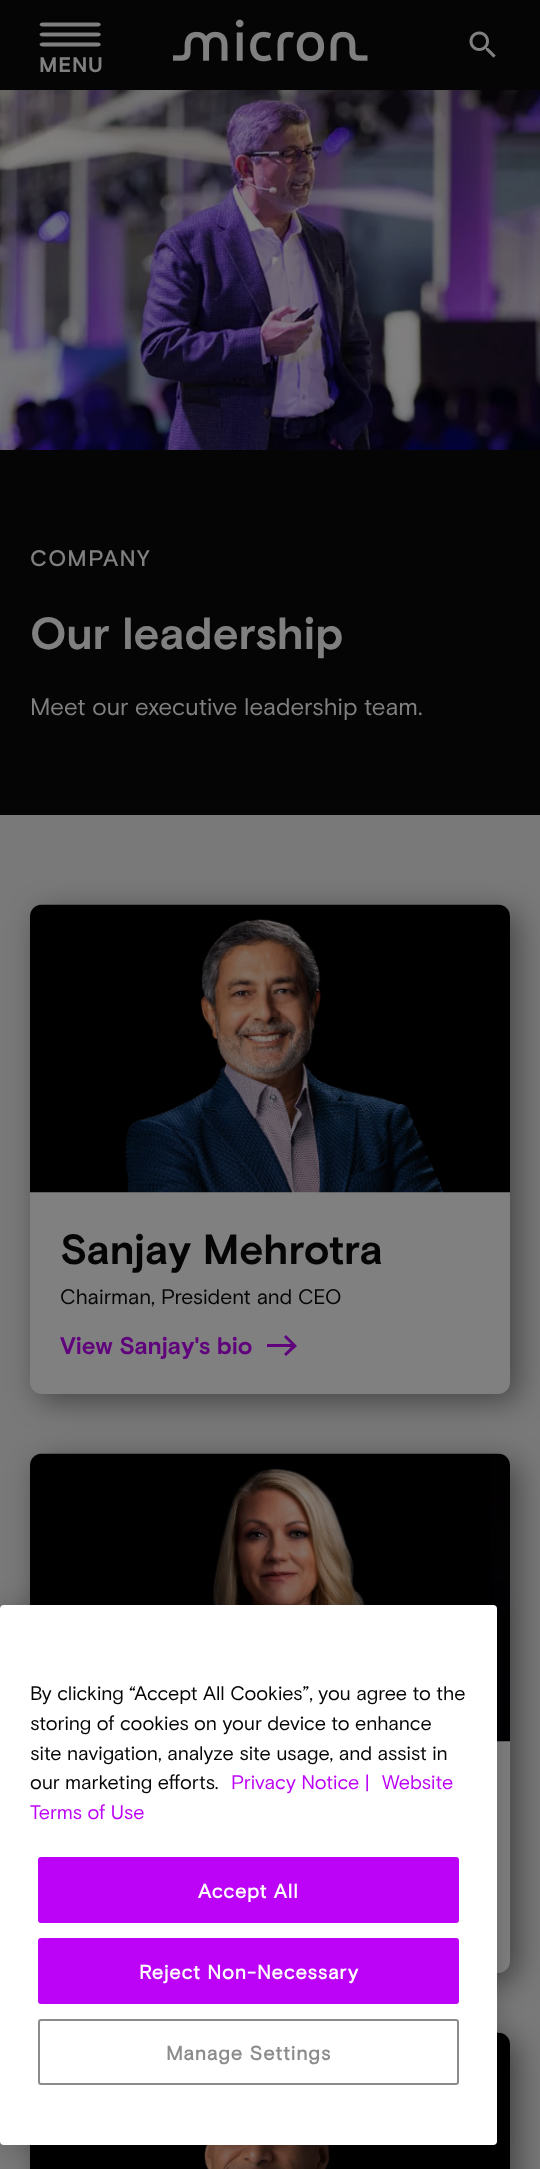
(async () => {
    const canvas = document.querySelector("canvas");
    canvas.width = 540;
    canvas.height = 2169;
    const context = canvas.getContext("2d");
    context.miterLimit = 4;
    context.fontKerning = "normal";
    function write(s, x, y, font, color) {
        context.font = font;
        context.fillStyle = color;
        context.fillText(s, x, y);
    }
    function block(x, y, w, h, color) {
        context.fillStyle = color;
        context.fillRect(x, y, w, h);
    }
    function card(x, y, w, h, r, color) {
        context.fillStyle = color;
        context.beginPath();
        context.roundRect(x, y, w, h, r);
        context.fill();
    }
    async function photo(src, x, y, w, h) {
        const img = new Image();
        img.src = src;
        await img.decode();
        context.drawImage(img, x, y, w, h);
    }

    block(0, 0, 540, 2169, "rgb(121, 121, 121)");
    block(0, 0, 540, 90, "rgb(5, 5, 5)");
    await photo("media/1.png", 173, 19, 195, 43);
    await photo("media/2.png", 469, 31, 27, 27);
    await photo("media/3.png", 39, 22, 62, 25);
    context.letterSpacing = "1px";
    write("MENU", 39, 72, "bold 21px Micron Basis", "rgb(128, 128, 128)");
    block(0, 450, 540, 365, "rgb(5, 5, 5)");
    await photo("media/4.png", 0, 90, 540, 360);
    context.letterSpacing = "1.5px";
    write("COMPANY", 30, 566, "500 22.5px Micron Basis", "rgb(128, 128, 128)");
    context.letterSpacing = "0px";
    write("Our leadership", 30, 649, "bold 45px Micron Basis", "rgb(128, 128, 128)");
    write("Meet our executive leadership team.", 30, 715, "24px Micron Basis", "rgb(128, 128, 128)");
    context.fillStyle = "rgba(0, 0, 0, 0.43)";
    context.filter = "blur(15px)";
    context.beginPath();
    context.roundRect(38, 912, 480, 489, 12);
    context.fill();
    context.filter = "none";
    card(30, 905, 480, 489, 12, "rgb(128, 128, 128)");
    await photo("media/5.png", 30, 904, 480, 289);
    write("Sanjay Mehrotra", 60, 1264, "bold 42px Micron Basis", "rgb(5, 5, 5)");
    write("Chairman, President and CEO", 60, 1304, "21px Micron Basis", "rgb(5, 5, 5)");
    write("View Sanjay's bio", 60, 1354, "bold 24px Micron Basis", "rgb(95, 2, 124)");
    context.save();
    context.beginPath();
    context.rect(267, 1335, 30, 21);
    context.clip();
    context.beginPath();
    context.moveTo(286, 1335);
    context.lineTo(284, 1337);
    context.lineTo(291, 1344);
    context.lineTo(247, 1344);
    context.lineTo(247, 1347);
    context.lineTo(291, 1347);
    context.lineTo(284, 1354);
    context.lineTo(286, 1356);
    context.lineTo(297, 1346);
    context.closePath();
    context.fill();
    context.restore();
    context.fillStyle = "rgba(0, 0, 0, 0.43)";
    context.filter = "blur(15px)";
    context.beginPath();
    context.roundRect(38, 1461, 480, 519, 12);
    context.fill();
    context.filter = "none";
    card(30, 1454, 480, 519, 12, "rgb(128, 128, 128)");
    await photo("media/6.png", 30, 1453, 480, 289);
    context.fillStyle = "rgba(0, 0, 0, 0.43)";
    context.filter = "blur(15px)";
    context.beginPath();
    context.roundRect(38, 2040, 480, 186, 12);
    context.fill();
    context.filter = "none";
    await photo("media/7.png", 30, 2032, 480, 137);
    context.fillStyle = "rgba(0, 0, 0, 0.2)";
    context.filter = "blur(13.5px)";
    context.beginPath();
    context.roundRect(0, 1605, 497, 540, 4);
    context.fill();
    context.filter = "none";
    card(0, 1605, 497, 540, 4, "rgb(255, 255, 255)");
    write("By clicking “Accept All Cookies”, you agree to the", 30, 1700, "19.7px Micron Basis", "rgb(5, 5, 5)");
    write("storing of cookies on your device to enhance", 30, 1730, "19.7px Micron Basis", "rgb(5, 5, 5)");
    write("site navigation, analyze site usage, and assist in", 30, 1760, "19.7px Micron Basis", "rgb(5, 5, 5)");
    write("our marketing efforts.", 30, 1789, "19.7px Micron Basis", "rgb(5, 5, 5)");
    write("Privacy Notice |", 231, 1789, "19.7px Micron Basis", "rgb(189, 3, 247)");
    write("Website", 382, 1789, "19.7px Micron Basis", "rgb(189, 3, 247)");
    write("Terms of Use", 30, 1819, "19.7px Micron Basis", "rgb(189, 3, 247)");
    context.beginPath();
    context.roundRect(39, 1858, 419, 64, 2);
    context.fill();
    context.strokeStyle = "rgb(189, 3, 247)";
    context.lineWidth = 2;
    context.stroke();
    context.letterSpacing = "1px";
    write("Accept All", 198, 1898, "bold 19.7px 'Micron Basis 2'", "rgb(255, 255, 255)");
    context.fillStyle = "rgb(189, 3, 247)";
    context.beginPath();
    context.roundRect(39, 1939, 419, 64, 2);
    context.fill();
    context.stroke();
    write("Reject Non-Necessary", 139, 1979, "bold 19.7px 'Micron Basis 2'", "rgb(255, 255, 255)");
    context.beginPath();
    context.roundRect(39, 2020, 419, 64, 2);
    context.strokeStyle = "rgb(140, 140, 140)";
    context.stroke();
    write("Manage Settings", 166, 2060, "bold 19.7px 'Micron Basis 2'", "rgb(140, 140, 140)");
})();
